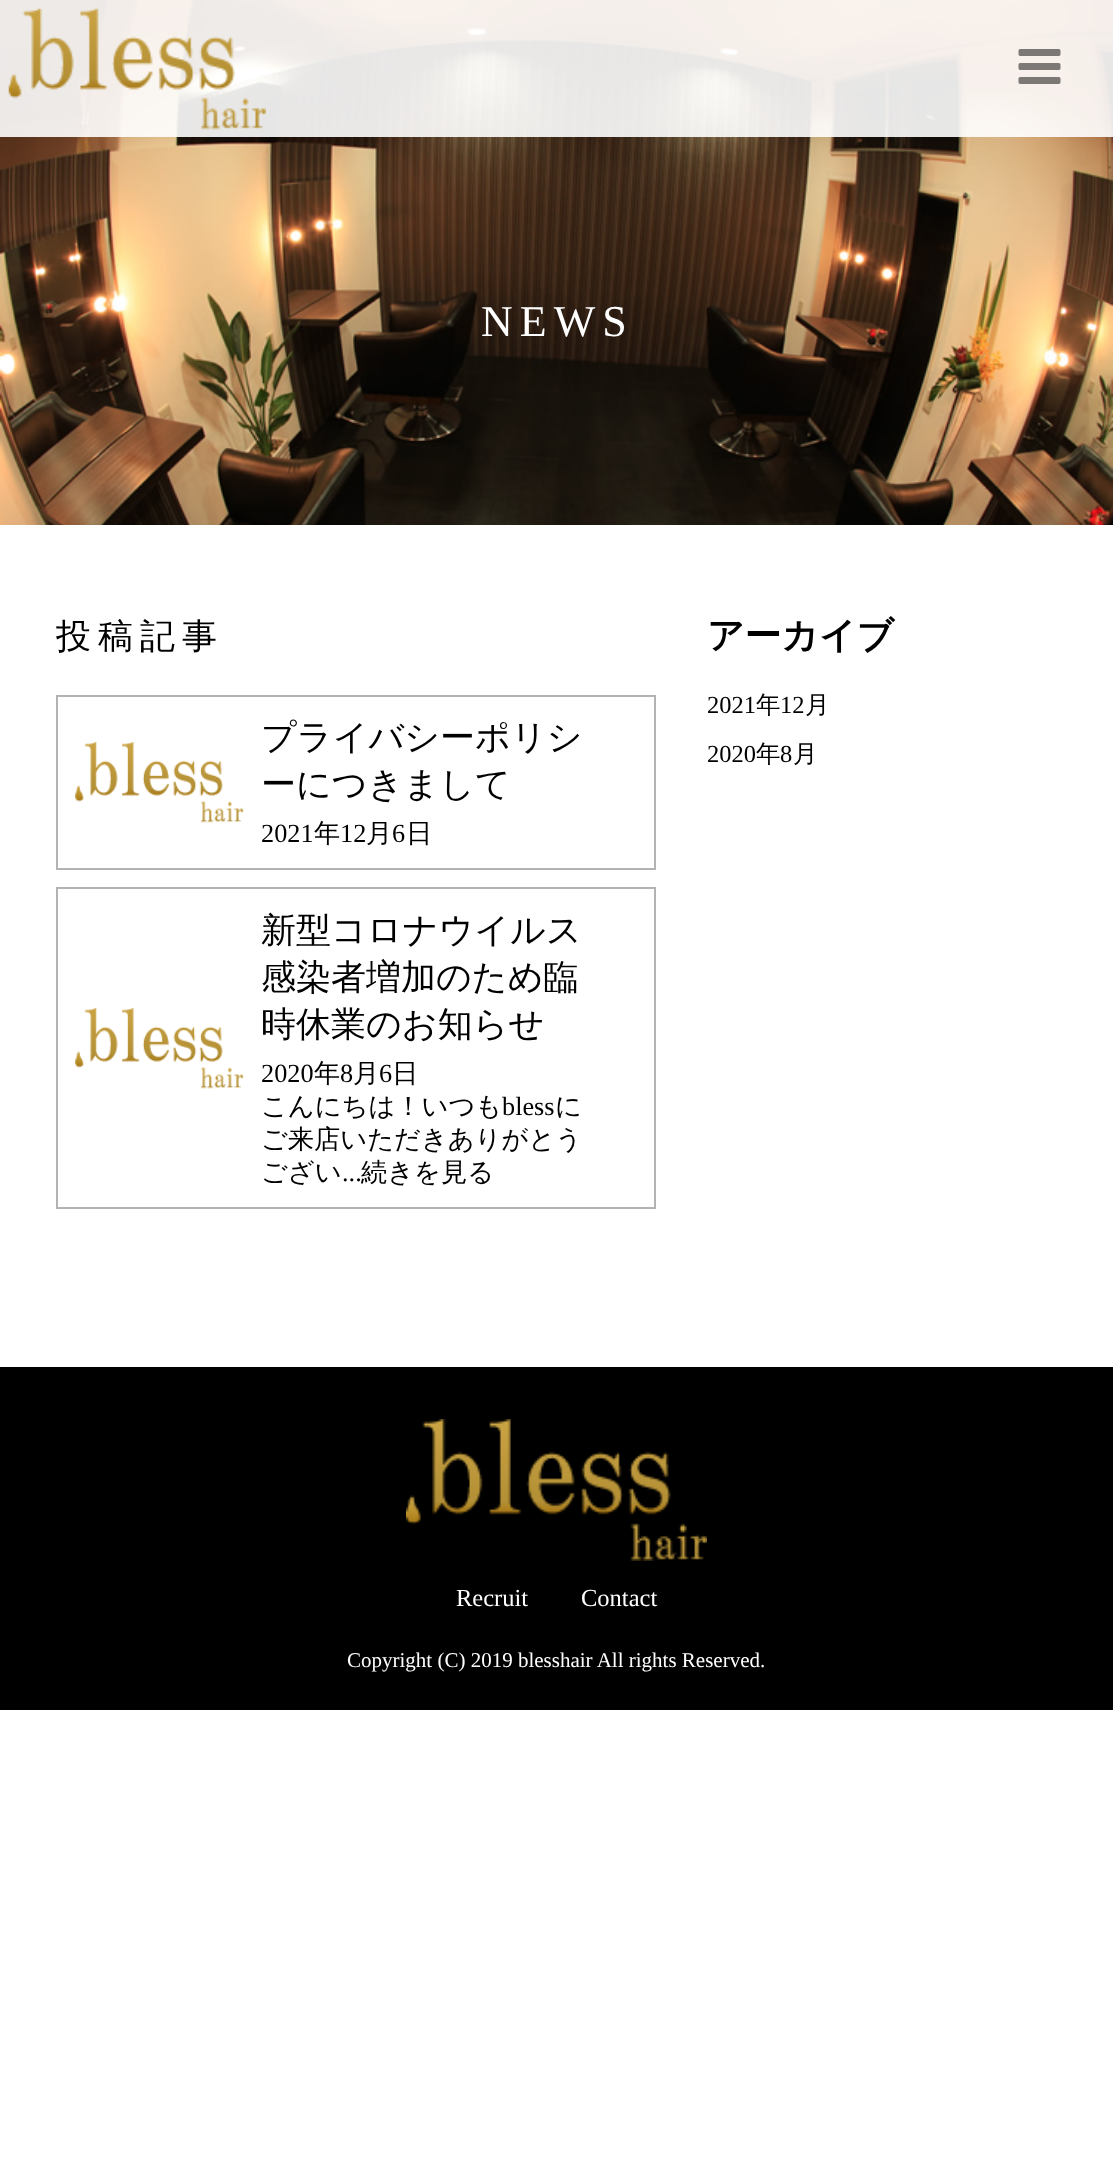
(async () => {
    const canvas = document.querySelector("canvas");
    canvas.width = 1113;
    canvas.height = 2170;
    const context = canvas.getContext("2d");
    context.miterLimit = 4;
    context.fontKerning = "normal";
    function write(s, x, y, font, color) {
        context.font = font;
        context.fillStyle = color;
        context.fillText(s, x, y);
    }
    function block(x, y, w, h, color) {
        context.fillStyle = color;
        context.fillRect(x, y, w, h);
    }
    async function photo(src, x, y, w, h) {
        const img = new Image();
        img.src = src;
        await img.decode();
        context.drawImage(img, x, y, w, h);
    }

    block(0, 0, 1113, 2170, "rgb(255, 255, 255)");
    await photo("media/3.png", 0, 0, 1113, 525);
    block(0, 0, 1113, 137, "rgba(255, 255, 255, 0.9)");
    await photo("media/1.png", 8, 8, 258, 122);
    await photo("media/2.png", 1018, 49, 43, 35);
    context.letterSpacing = "7px";
    write("NEWS", 481, 336, "44px Liberation Serif", "rgb(255, 255, 255)");
    write("投稿記事", 56, 648, "500 35px WenQuanYi Zen Hei", "rgb(0, 0, 0)");
    context.strokeStyle = "rgb(179, 179, 179)";
    context.lineWidth = 2;
    context.strokeRect(57, 696, 598, 173);
    await photo("media/4.png", 75, 742, 169, 81);
    context.letterSpacing = "0px";
    write("プライバシーポリシ", 261, 749, "500 35px WenQuanYi Zen Hei", "rgb(0, 0, 0)");
    write("ーにつきまして", 261, 796, "500 35px WenQuanYi Zen Hei", "rgb(0, 0, 0)");
    write("2021", 261, 842, "26.25px Liberation Serif", "rgb(0, 0, 0)");
    write("年", 314, 842, "500 26.25px WenQuanYi Zen Hei", "rgb(0, 0, 0)");
    write("12", 340, 842, "26.25px Liberation Serif", "rgb(0, 0, 0)");
    write("月", 366, 842, "500 26.25px WenQuanYi Zen Hei", "rgb(0, 0, 0)");
    write("6", 392, 842, "26.25px Liberation Serif", "rgb(0, 0, 0)");
    write("日", 406, 842, "500 26.25px WenQuanYi Zen Hei", "rgb(0, 0, 0)");
    context.strokeRect(57, 888, 598, 320);
    await photo("media/5.png", 75, 1008, 169, 81);
    write("新型コロナウイルス", 261, 942, "500 35px WenQuanYi Zen Hei", "rgb(0, 0, 0)");
    write("感染者増加のため臨", 261, 989, "500 35px WenQuanYi Zen Hei", "rgb(0, 0, 0)");
    write("時休業のお知らせ", 261, 1036, "500 35px WenQuanYi Zen Hei", "rgb(0, 0, 0)");
    write("2020", 261, 1082, "26.25px Liberation Serif", "rgb(0, 0, 0)");
    write("年", 314, 1082, "500 26.25px WenQuanYi Zen Hei", "rgb(0, 0, 0)");
    write("8", 340, 1082, "26.25px Liberation Serif", "rgb(0, 0, 0)");
    write("月", 353, 1082, "500 26.25px WenQuanYi Zen Hei", "rgb(0, 0, 0)");
    write("6", 379, 1082, "26.25px Liberation Serif", "rgb(0, 0, 0)");
    write("日", 392, 1082, "500 26.25px WenQuanYi Zen Hei", "rgb(0, 0, 0)");
    write("こんにちは！いつも", 261, 1115, "500 26.25px WenQuanYi Zen Hei", "rgb(0, 0, 0)");
    write("bless", 502, 1115, "26.25px Liberation Serif", "rgb(0, 0, 0)");
    write("に", 555, 1115, "500 26.25px WenQuanYi Zen Hei", "rgb(0, 0, 0)");
    write("ご来店いただきありがとう", 261, 1148, "500 26.25px WenQuanYi Zen Hei", "rgb(0, 0, 0)");
    write("ござい", 261, 1181, "500 26.25px WenQuanYi Zen Hei", "rgb(0, 0, 0)");
    write("...", 342, 1181, "26.25px Liberation Serif", "rgb(0, 0, 0)");
    write("続きを見る", 361, 1181, "500 26.25px WenQuanYi Zen Hei", "rgb(0, 0, 0)");
    write("アーカイブ", 707, 648, "bold 36.75px WenQuanYi Zen Hei", "rgb(0, 0, 0)");
    write("2021", 707, 713, "24.5px Liberation Serif", "rgb(0, 0, 0)");
    write("年", 756, 713, "500 24.5px WenQuanYi Zen Hei", "rgb(0, 0, 0)");
    write("12", 780, 713, "24.5px Liberation Serif", "rgb(0, 0, 0)");
    write("月", 805, 713, "500 24.5px WenQuanYi Zen Hei", "rgb(0, 0, 0)");
    write("2020", 707, 762, "24.5px Liberation Serif", "rgb(0, 0, 0)");
    write("年", 756, 762, "500 24.5px WenQuanYi Zen Hei", "rgb(0, 0, 0)");
    write("8", 780, 762, "24.5px Liberation Serif", "rgb(0, 0, 0)");
    write("月", 793, 762, "500 24.5px WenQuanYi Zen Hei", "rgb(0, 0, 0)");
    block(0, 1367, 1113, 343, "rgb(0, 0, 0)");
    await photo("media/6.png", 406, 1419, 301, 142);
    write("Recruit", 456, 1606, "24.5px Liberation Serif", "rgb(255, 255, 255)");
    write("Contact", 581, 1606, "24.5px Liberation Serif", "rgb(255, 255, 255)");
    write("Copyright (C) 2019 blesshair All rights Reserved.", 347, 1667, "21px Liberation Serif", "rgb(255, 255, 255)");
})();
